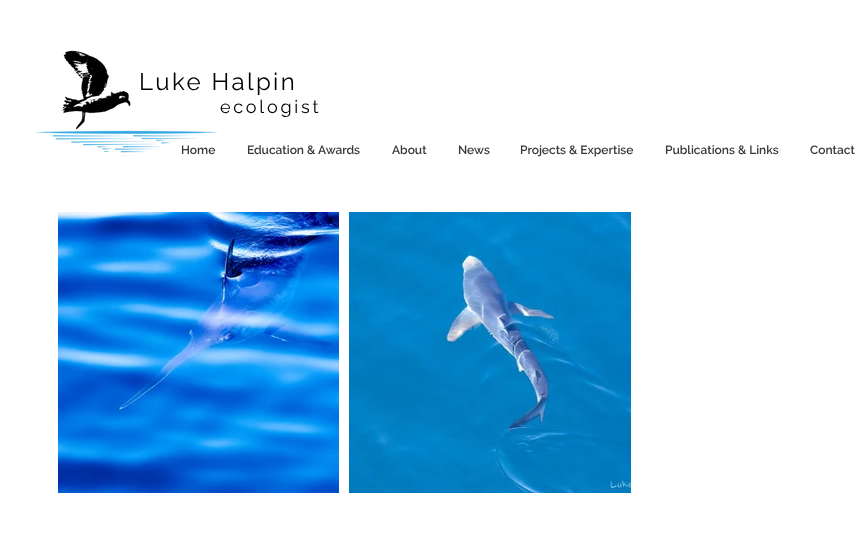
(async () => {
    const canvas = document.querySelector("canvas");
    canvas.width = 856;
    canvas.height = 550;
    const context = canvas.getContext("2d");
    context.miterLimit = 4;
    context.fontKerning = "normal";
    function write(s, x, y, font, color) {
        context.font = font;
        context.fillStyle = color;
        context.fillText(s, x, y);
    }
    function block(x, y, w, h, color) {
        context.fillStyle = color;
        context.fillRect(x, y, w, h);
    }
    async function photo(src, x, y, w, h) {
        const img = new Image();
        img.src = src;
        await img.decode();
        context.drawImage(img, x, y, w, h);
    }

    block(0, 0, 856, 550, "rgb(255, 255, 255)");
    await photo("media/1.png", 35, 50, 183, 107);
    context.letterSpacing = "2.4px";
    write("Luke Halpin", 139, 90, "24px Raleway", "rgb(0, 0, 0)");
    context.letterSpacing = "2.75px";
    write("ecologist", 220, 113, "18px Raleway", "rgb(0, 0, 0)");
    context.letterSpacing = "0px";
    write("Home", 181, 154, "600 12px Raleway", "rgb(56, 56, 56)");
    write("Education & Awards", 247, 154, "600 12px Raleway", "rgb(56, 56, 56)");
    write("About", 392, 154, "600 12px Raleway", "rgb(56, 56, 56)");
    write("News", 458, 154, "600 12px Raleway", "rgb(56, 56, 56)");
    write("Projects & Expertise", 520, 154, "600 12px Raleway", "rgb(56, 56, 56)");
    write("Publications & Links", 665, 154, "600 12px Raleway", "rgb(56, 56, 56)");
    write("Contact", 810, 154, "600 12px Raleway", "rgb(56, 56, 56)");
    await photo("media/2.png", 58, 212, 281, 281);
    await photo("media/3.png", 349, 212, 282, 281);
})();
